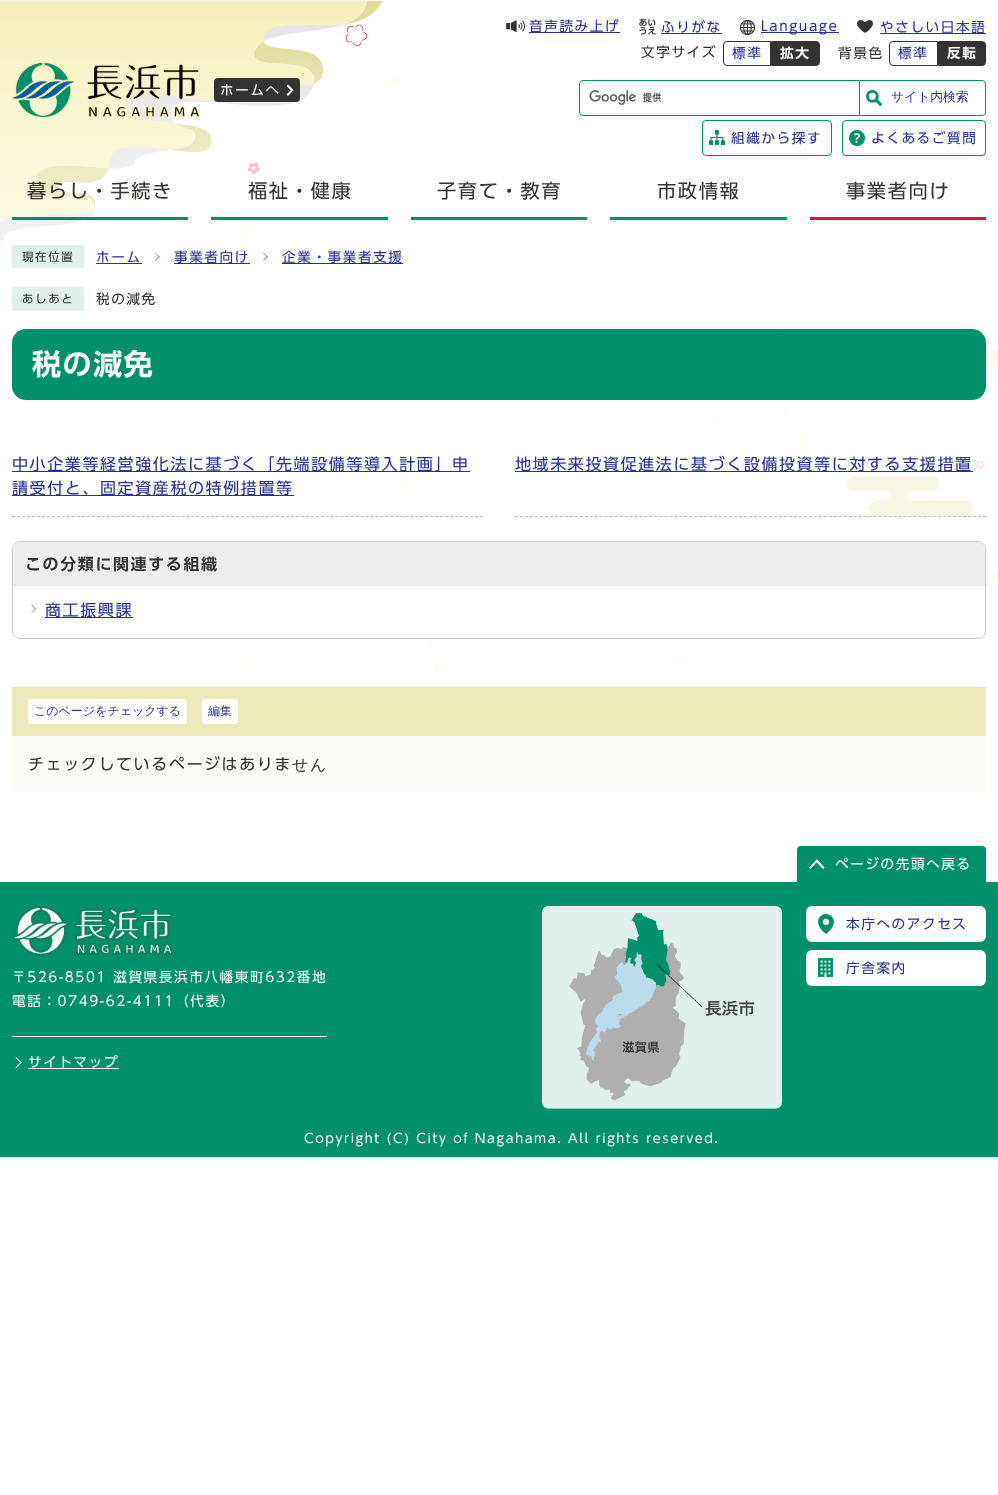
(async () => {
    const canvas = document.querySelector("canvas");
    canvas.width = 998;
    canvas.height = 1495;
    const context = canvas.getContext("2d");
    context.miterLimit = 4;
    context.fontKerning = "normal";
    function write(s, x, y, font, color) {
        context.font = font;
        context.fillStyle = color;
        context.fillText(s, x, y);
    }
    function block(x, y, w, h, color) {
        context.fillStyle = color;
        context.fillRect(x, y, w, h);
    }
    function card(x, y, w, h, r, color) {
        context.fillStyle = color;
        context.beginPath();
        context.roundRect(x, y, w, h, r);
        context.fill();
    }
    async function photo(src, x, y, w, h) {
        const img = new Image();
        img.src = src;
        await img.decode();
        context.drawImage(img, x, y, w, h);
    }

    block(0, 0, 998, 1495, "rgb(255, 255, 255)");
    await photo("media/1.png", 0, 0, 998, 674);
    await photo("media/2.png", 12, 63, 188, 56);
    card(214, 78, 86, 24, 4, "rgb(51, 51, 51)");
    context.letterSpacing = "1.6px";
    write("ホームへ", 220, 95, "13.6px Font", "rgb(255, 255, 255)");
    context.beginPath();
    context.moveTo(286.5, 86);
    context.lineTo(288, 84.5);
    context.lineTo(293.5, 90);
    context.lineTo(292, 91.5);
    context.closePath();
    context.fill();
    context.beginPath();
    context.moveTo(286.5, 94.5);
    context.lineTo(292, 89);
    context.lineTo(293.5, 90);
    context.lineTo(288, 96);
    context.closePath();
    context.fill();
    await photo("media/3.png", 506, 20, 19, 12);
    block(529, 32, 91, 1, "rgb(43, 48, 149)");
    write("音声読み上げ", 529, 31, "13.6px Font", "rgb(43, 48, 149)");
    await photo("media/4.png", 639, 18, 17, 17);
    write("ふりがな", 661, 32, "13.6px Font", "rgb(43, 48, 149)");
    block(661, 33, 61, 1, "rgb(43, 48, 149)");
    await photo("media/5.png", 740, 20, 15, 15);
    block(761, 32, 78, 1, "rgb(43, 48, 149)");
    write("Language", 761, 31, "13.6px Font", "rgb(43, 48, 149)");
    await photo("media/6.png", 857, 20, 16, 13);
    block(880, 33, 106, 1, "rgb(43, 48, 149)");
    write("やさしい日本語", 880, 32, "13.6px Font", "rgb(43, 48, 149)");
    write("文字サイズ", 641, 57, "13.6px Font", "rgb(51, 51, 51)");
    context.beginPath();
    context.roundRect(723.5, 41.5, 47, 24, [3.5, 0, 0, 3.5]);
    context.strokeStyle = "rgb(51, 51, 51)";
    context.stroke();
    write("標準", 732, 58, "13.6px Font", "rgb(43, 48, 149)");
    context.fillStyle = "rgb(51, 51, 51)";
    context.beginPath();
    context.roundRect(771.5, 41.5, 48, 24, [0, 3.5, 3.5, 0]);
    context.fill();
    context.stroke();
    write("拡大", 780, 58, "600 13.6px Font", "rgb(255, 255, 255)");
    write("背景色", 838, 58, "13.6px Font", "rgb(51, 51, 51)");
    context.beginPath();
    context.roundRect(889.5, 41.5, 48, 24, [3.5, 0, 0, 3.5]);
    context.stroke();
    write("標準", 898, 58, "13.6px Font", "rgb(43, 48, 149)");
    context.fillStyle = "rgb(51, 51, 51)";
    context.beginPath();
    context.roundRect(938.5, 41.5, 47, 24, [0, 3.5, 3.5, 0]);
    context.fill();
    context.stroke();
    write("反転", 947, 58, "600 13.6px Font", "rgb(255, 255, 255)");
    await photo("media/7.png", 589, 90, 73, 15);
    context.beginPath();
    context.roundRect(579.5, 80.5, 280, 35, [3.5, 0, 0, 3.5]);
    context.strokeStyle = "rgb(0, 145, 106)";
    context.stroke();
    await photo("media/8.png", 866, 90, 16, 16);
    context.fillStyle = "rgb(0, 145, 106)";
    context.beginPath();
    context.moveTo(860, 80);
    context.lineTo(982, 80);
    context.bezierCurveTo(984, 80, 986, 82, 986, 84);
    context.lineTo(986, 112);
    context.bezierCurveTo(986, 114, 984, 116, 982, 116);
    context.lineTo(860, 116);
    context.closePath();
    context.moveTo(860, 81);
    context.lineTo(982, 81);
    context.bezierCurveTo(984, 81, 985, 82, 985, 84);
    context.lineTo(985, 112);
    context.bezierCurveTo(985, 114, 984, 115, 982, 115);
    context.lineTo(860, 115);
    context.closePath();
    context.fill("evenodd");
    context.letterSpacing = "0px";
    write("サイト内検索", 891, 101, "500 12.8px WenQuanYi Zen Hei", "rgb(43, 48, 149)");
    await photo("media/9.png", 709, 130, 16, 15);
    context.beginPath();
    context.roundRect(702.5, 120.5, 129, 35, 3.5);
    context.stroke();
    context.letterSpacing = "1.6px";
    write("組織から探す", 731, 143, "13.6px Font", "rgb(43, 48, 149)");
    await photo("media/10.png", 849, 130, 16, 16);
    context.beginPath();
    context.roundRect(842.5, 120.5, 143, 35, 3.5);
    context.stroke();
    write("よくあるご質問", 871, 143, "13.6px Font", "rgb(43, 48, 149)");
    block(12, 217, 176, 3, "rgb(0, 145, 106)");
    write("暮らし・手続き", 27, 198, "19.25px Font", "rgb(51, 51, 51)");
    block(211, 217, 177, 3, "rgb(0, 145, 106)");
    write("福祉・健康", 248, 198, "19.25px Font", "rgb(51, 51, 51)");
    block(411, 217, 176, 3, "rgb(0, 145, 106)");
    write("子育て・教育", 437, 198, "19.25px Font", "rgb(51, 51, 51)");
    block(610, 217, 177, 3, "rgb(0, 145, 106)");
    write("市政情報", 657, 198, "19.25px Font", "rgb(51, 51, 51)");
    write("事業者向け", 846, 198, "19.25px Font", "rgb(51, 51, 51)");
    block(810, 217, 176, 3, "rgb(215, 23, 64)");
    block(0, 240, 955, 29, "rgba(255, 255, 255, 0.8)");
    card(12, 245, 72, 23, 2, "rgb(225, 240, 236)");
    write("現在位置", 22, 261, "11.5px Font", "rgb(51, 51, 51)");
    write("ホーム", 96, 262, "13.6px Font", "rgb(43, 48, 149)");
    block(96, 263, 46, 1, "rgb(43, 48, 149)");
    context.fillStyle = "rgb(153, 153, 153)";
    context.beginPath();
    context.moveTo(155, 253);
    context.lineTo(155.5, 252.5);
    context.lineTo(160, 257);
    context.lineTo(159, 257.5);
    context.closePath();
    context.fill();
    context.beginPath();
    context.moveTo(155, 260.5);
    context.lineTo(159, 256);
    context.lineTo(160, 257);
    context.lineTo(155.5, 261);
    context.closePath();
    context.fill();
    block(174, 263, 76, 1, "rgb(43, 48, 149)");
    write("事業者向け", 174, 262, "13.6px Font", "rgb(43, 48, 149)");
    context.fillStyle = "rgb(153, 153, 153)";
    context.beginPath();
    context.moveTo(263, 253);
    context.lineTo(263.5, 252.5);
    context.lineTo(268, 257);
    context.lineTo(267, 257.5);
    context.closePath();
    context.fill();
    context.beginPath();
    context.moveTo(263, 260.5);
    context.lineTo(267, 256);
    context.lineTo(268, 257);
    context.lineTo(263.5, 261);
    context.closePath();
    context.fill();
    block(282, 263, 121, 1, "rgb(43, 48, 149)");
    write("企業・事業者支援", 282, 262, "13.6px Font", "rgb(43, 48, 149)");
    card(12, 287, 72, 24, 2, "rgb(225, 240, 236)");
    write("あしあと", 22, 303, "11.5px Font", "rgb(51, 51, 51)");
    write("税の減免", 96, 304, "13.6px Font", "rgb(51, 51, 51)");
    card(12, 329, 974, 71, 14, "rgb(0, 145, 106)");
    write("税の減免", 32, 375, "600 29px Font", "rgb(255, 255, 255)");
    context.beginPath();
    context.moveTo(12, 516.5);
    context.lineTo(483, 516.5);
    context.strokeStyle = "rgb(187, 187, 187)";
    context.setLineDash([3, 1.98]);
    context.stroke();
    block(12, 471, 458, 1, "rgb(43, 48, 149)");
    write("中小企業等経営強化法に基づく「先端設備等導入計画」申", 12, 470, "16px Font", "rgb(43, 48, 149)");
    block(12, 495, 282, 1, "rgb(43, 48, 149)");
    write("請受付と、固定資産税の特例措置等", 12, 494, "16px Font", "rgb(43, 48, 149)");
    context.beginPath();
    context.moveTo(515, 516.5);
    context.lineTo(986, 516.5);
    context.stroke();
    block(515, 471, 458, 1, "rgb(43, 48, 149)");
    write("地域未来投資促進法に基づく設備投資等に対する支援措置", 515, 470, "16px Font", "rgb(43, 48, 149)");
    context.fillStyle = "rgb(255, 255, 255)";
    context.beginPath();
    context.roundRect(12.5, 541.5, 973, 97, 7.5);
    context.fill();
    context.strokeStyle = "rgb(204, 204, 204)";
    context.setLineDash([]);
    context.stroke();
    context.fillStyle = "rgb(238, 238, 238)";
    context.beginPath();
    context.roundRect(13, 542, 972, 44, [7, 7, 0, 0]);
    context.fill();
    write("この分類に関連する組織", 25, 570, "600 16px Font", "rgb(51, 51, 51)");
    context.fillStyle = "rgb(153, 153, 153)";
    context.beginPath();
    context.moveTo(31.5, 605.5);
    context.lineTo(32, 604.5);
    context.lineTo(36, 609);
    context.lineTo(35.5, 609.5);
    context.closePath();
    context.fill();
    context.beginPath();
    context.moveTo(31.5, 612.5);
    context.lineTo(35.5, 608);
    context.lineTo(36, 609);
    context.lineTo(32, 613);
    context.closePath();
    context.fill();
    block(45, 617, 88, 1, "rgb(43, 48, 149)");
    write("商工振興課", 45, 616, "16px Font", "rgb(43, 48, 149)");
    block(12, 687, 974, 49, "rgb(236, 234, 187)");
    card(28, 699, 159, 25, 4, "rgb(255, 255, 255)");
    context.letterSpacing = "0px";
    write("このページをチェックする", 34, 715, "500 12px WenQuanYi Zen Hei", "rgb(43, 48, 149)");
    card(202, 699, 36, 25, 4, "rgb(255, 255, 255)");
    write("編集", 208, 715, "500 12px WenQuanYi Zen Hei", "rgb(43, 48, 149)");
    block(12, 736, 974, 56, "rgb(252, 251, 245)");
    context.letterSpacing = "1.6px";
    write("チェックしているページはありま", 28, 770, "16px Font", "rgb(51, 51, 51)");
    write("せん", 292, 770, "500 16px WenQuanYi Zen Hei", "rgb(51, 51, 51)");
    context.fillStyle = "rgb(0, 145, 106)";
    context.beginPath();
    context.roundRect(797, 846, 189, 36, [4, 4, 0, 0]);
    context.fill();
    context.fillStyle = "rgb(255, 255, 255)";
    context.beginPath();
    context.moveTo(810.5, 869);
    context.lineTo(809, 867.5);
    context.lineTo(817, 859.5);
    context.lineTo(818, 861);
    context.closePath();
    context.fill();
    context.beginPath();
    context.moveTo(823, 869);
    context.lineTo(815.5, 861);
    context.lineTo(817, 859.5);
    context.lineTo(824.5, 867.5);
    context.closePath();
    context.fill();
    write("ページの先頭へ戻る", 835, 869, "13.6px Font", "rgb(255, 255, 255)");
    block(0, 882, 998, 275, "rgb(0, 145, 106)");
    await photo("media/11.png", 542, 906, 240, 203);
    card(806, 906, 180, 36, 6, "rgb(255, 255, 255)");
    await photo("media/12.png", 818, 914, 16, 20);
    write("本庁へのアクセス", 846, 929, "13.6px Font", "rgb(43, 48, 149)");
    card(806, 950, 180, 36, 6, "rgb(255, 255, 255)");
    await photo("media/13.png", 818, 958, 15, 19);
    write("庁舎案内", 846, 973, "13.6px Font", "rgb(43, 48, 149)");
    await photo("media/14.png", 12, 906, 161, 50);
    write("〒526-8501 滋賀県長浜市八幡東町632番地", 12, 982, "13.6px Font", "rgb(255, 255, 255)");
    write("電話：0749-62-4111（代表）", 12, 1006, "13.6px Font", "rgb(255, 255, 255)");
    block(12, 1036, 315, 1, "rgb(255, 255, 255)");
    context.beginPath();
    context.moveTo(15.5, 1057.5);
    context.lineTo(16, 1057);
    context.lineTo(21.5, 1062.5);
    context.lineTo(21, 1063.5);
    context.closePath();
    context.fill();
    context.beginPath();
    context.moveTo(15.5, 1067.5);
    context.lineTo(21, 1062);
    context.lineTo(21.5, 1062.5);
    context.lineTo(16, 1068.5);
    context.closePath();
    context.fill();
    write("サイトマップ", 28, 1067, "13.6px Font", "rgb(255, 255, 255)");
    block(28, 1068, 91, 1, "rgb(255, 255, 255)");
    write("Copyright (C) City of Nagahama. All rights reserved.", 304, 1143, "12.8px Font", "rgb(255, 255, 255)");
})();
